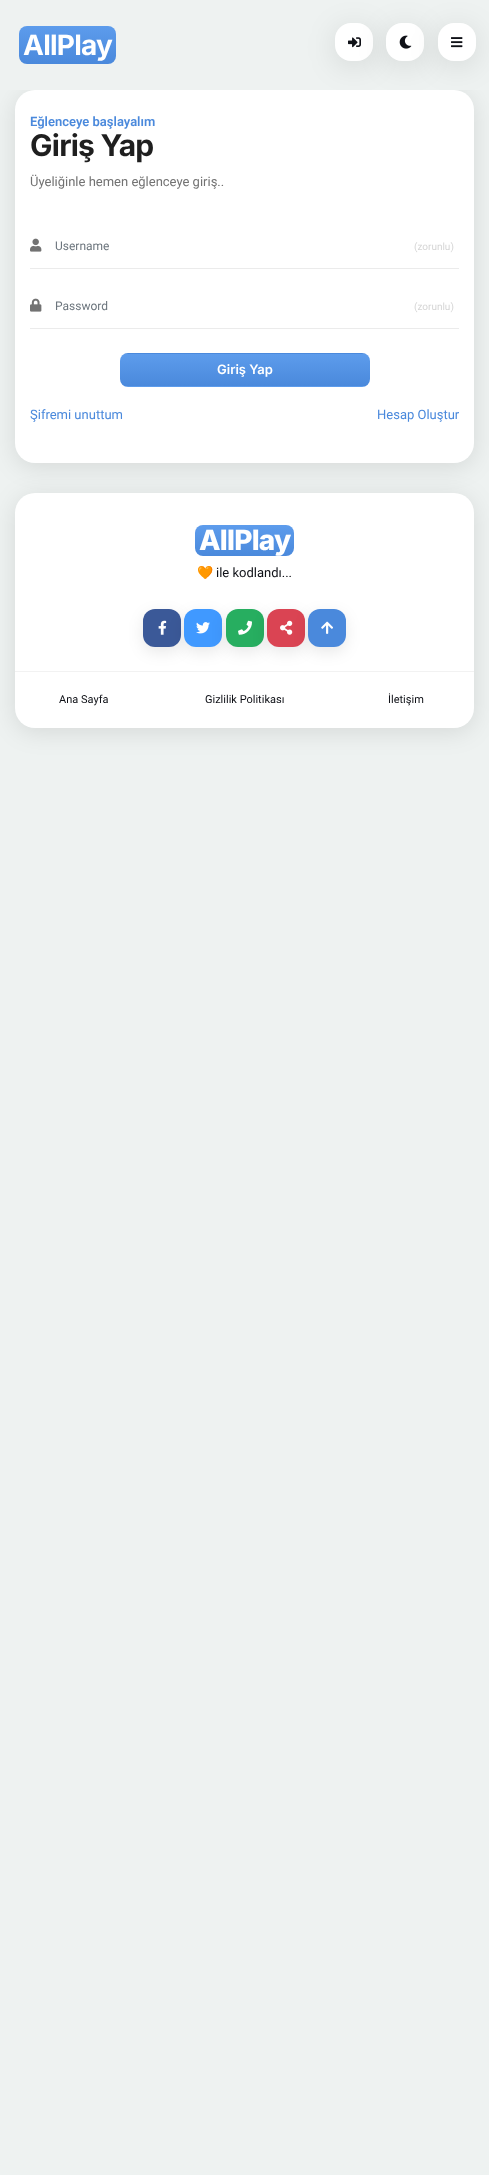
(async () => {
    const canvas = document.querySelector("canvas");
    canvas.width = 489;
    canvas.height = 2175;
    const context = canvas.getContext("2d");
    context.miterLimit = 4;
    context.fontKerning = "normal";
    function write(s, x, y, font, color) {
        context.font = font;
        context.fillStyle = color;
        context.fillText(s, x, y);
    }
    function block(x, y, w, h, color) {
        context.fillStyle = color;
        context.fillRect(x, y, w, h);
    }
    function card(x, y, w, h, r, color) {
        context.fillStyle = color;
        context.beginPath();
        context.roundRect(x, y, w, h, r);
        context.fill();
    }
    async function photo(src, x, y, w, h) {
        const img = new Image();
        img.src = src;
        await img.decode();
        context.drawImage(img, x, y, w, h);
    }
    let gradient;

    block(0, 0, 489, 2175, "rgb(238, 242, 241)");
    context.fillStyle = "rgba(0, 0, 0, 0.11)";
    context.filter = "blur(15px)";
    context.beginPath();
    context.roundRect(335, 28, 38, 38, 16);
    context.fill();
    context.filter = "none";
    card(335, 23, 38, 38, 16, "rgb(255, 255, 255)");
    await photo("media/1.png", 348, 37, 13, 11);
    context.fillStyle = "rgba(0, 0, 0, 0.11)";
    context.filter = "blur(15px)";
    context.beginPath();
    context.roundRect(386, 28, 38, 38, 16);
    context.fill();
    context.filter = "none";
    card(386, 23, 38, 38, 16, "rgb(255, 255, 255)");
    await photo("media/2.png", 399, 35, 13, 14);
    gradient = context.createLinearGradient(68, 26, 68, 64);
    gradient.addColorStop(0, "rgb(93, 156, 236)");
    gradient.addColorStop(1, "rgb(74, 137, 220)");
    context.fillStyle = gradient;
    context.beginPath();
    context.roundRect(19, 26, 97, 38, 8);
    context.fill();
    context.letterSpacing = "-0.75px";
    write("AllPlay", 23, 55, "bold 28px Inter", "rgb(255, 255, 255)");
    context.fillStyle = "rgba(0, 0, 0, 0.11)";
    context.filter = "blur(15px)";
    context.beginPath();
    context.roundRect(438, 28, 38, 38, 16);
    context.fill();
    context.filter = "none";
    card(438, 23, 38, 38, 16, "rgb(255, 255, 255)");
    await photo("media/3.png", 451, 37, 12, 11);
    context.save();
    context.beginPath();
    context.rect(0, 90, 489, 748);
    context.clip();
    context.fillStyle = "rgba(0, 0, 0, 0.1)";
    context.filter = "blur(12px)";
    context.beginPath();
    context.roundRect(15, 94, 459, 373, 20);
    context.fill();
    context.filter = "none";
    context.restore();
    card(15, 90, 459, 373, 20, "rgb(255, 255, 255)");
    context.letterSpacing = "0px";
    write("Eğlenceye başlayalım", 30, 126, "600 13px Roboto", "rgb(74, 137, 220)");
    context.letterSpacing = "-0.75px";
    write("Giriş Yap", 30, 156, "bold 30px Inter", "rgb(31, 31, 31)");
    context.letterSpacing = "0px";
    write("Üyeliğinle hemen eğlenceye giriş..", 30, 186, "13px Roboto", "rgb(114, 114, 114)");
    await photo("media/4.png", 30, 238, 12, 14);
    block(30, 268, 429, 1, "rgb(235, 235, 235)");
    write("Username", 55, 250, "12px Roboto", "rgb(108, 117, 125)");
    write("(zorunlu)", 414, 250, "10px Roboto", "rgb(213, 213, 213)");
    await photo("media/5.png", 30, 298, 12, 14);
    block(30, 328, 429, 1, "rgb(235, 235, 235)");
    write("Password", 55, 310, "12px Roboto", "rgb(108, 117, 125)");
    write("(zorunlu)", 414, 310, "10px Roboto", "rgb(213, 213, 213)");
    context.save();
    context.beginPath();
    context.roundRect(120, 353, 250, 34, 8);
    context.clip();
    gradient = context.createLinearGradient(245, 322, 245, 354);
    gradient.addColorStop(0, "rgb(93, 156, 236)");
    gradient.addColorStop(1, "rgb(74, 137, 220)");
    context.fillStyle = gradient;
    context.fillRect(120, 353, 250, 1);
    gradient = context.createLinearGradient(245, 354, 245, 386);
    gradient.addColorStop(0, "rgb(93, 156, 236)");
    gradient.addColorStop(1, "rgb(74, 137, 220)");
    context.fillStyle = gradient;
    context.fillRect(120, 354, 250, 32);
    gradient = context.createLinearGradient(245, 386, 245, 418);
    gradient.addColorStop(0, "rgb(93, 156, 236)");
    gradient.addColorStop(1, "rgb(74, 137, 220)");
    context.fillStyle = gradient;
    context.fillRect(120, 386, 250, 1);
    context.restore();
    write("Giriş Yap", 217, 374, "600 13px Inter", "rgb(255, 255, 255)");
    write("Şifremi unuttum", 30, 419, "13px Roboto", "rgb(74, 137, 220)");
    write("Hesap Oluştur", 377, 419, "13px Roboto", "rgb(74, 137, 220)");
    context.fillStyle = "rgba(0, 0, 0, 0.1)";
    context.filter = "blur(12px)";
    context.beginPath();
    context.roundRect(15, 497, 459, 235, 20);
    context.fill();
    context.filter = "none";
    card(15, 493, 459, 235, 20, "rgb(255, 255, 255)");
    gradient = context.createLinearGradient(245, 525, 245, 556);
    gradient.addColorStop(0, "rgb(93, 156, 236)");
    gradient.addColorStop(1, "rgb(74, 137, 220)");
    context.fillStyle = gradient;
    context.beginPath();
    context.roundRect(195, 525, 99, 31, 8);
    context.fill();
    context.letterSpacing = "-0.75px";
    write("AllPlay", 199, 550, "800 28px Inter", "rgb(255, 255, 255)");
    context.letterSpacing = "0px";
    write("🧡", 197, 577, "13px Noto Color Emoji", "rgb(15, 17, 23)");
    write("ile kodlandı...", 216, 577, "13px Roboto", "rgb(15, 17, 23)");
    block(15, 671, 459, 1, "rgb(242, 242, 242)");
    context.fillStyle = "rgba(0, 0, 0, 0.09)";
    context.filter = "blur(7.5px)";
    context.beginPath();
    context.roundRect(143, 614, 38, 38, 12);
    context.fill();
    context.filter = "none";
    card(143, 609, 38, 38, 12, "rgb(59, 89, 152)");
    await photo("media/6.png", 158, 620, 9, 15);
    context.fillStyle = "rgba(0, 0, 0, 0.09)";
    context.filter = "blur(7.5px)";
    context.beginPath();
    context.roundRect(184, 614, 38, 38, 12);
    context.fill();
    context.filter = "none";
    card(184, 609, 38, 38, 12, "rgb(64, 153, 255)");
    await photo("media/7.png", 196, 622, 14, 12);
    context.fillStyle = "rgba(0, 0, 0, 0.09)";
    context.filter = "blur(7.5px)";
    context.beginPath();
    context.roundRect(226, 614, 38, 38, 12);
    context.fill();
    context.filter = "none";
    card(226, 609, 38, 38, 12, "rgb(39, 174, 96)");
    await photo("media/8.png", 238, 620, 14, 15);
    context.fillStyle = "rgba(0, 0, 0, 0.09)";
    context.filter = "blur(7.5px)";
    context.beginPath();
    context.roundRect(267, 614, 38, 38, 12);
    context.fill();
    context.filter = "none";
    card(267, 609, 38, 38, 12, "rgb(218, 68, 83)");
    await photo("media/9.png", 280, 620, 13, 15);
    context.fillStyle = "rgba(0, 0, 0, 0.09)";
    context.filter = "blur(7.5px)";
    context.beginPath();
    context.roundRect(308, 614, 38, 38, 12);
    context.fill();
    context.filter = "none";
    card(308, 609, 38, 38, 12, "rgb(74, 137, 220)");
    await photo("media/10.png", 321, 621, 12, 13);
    write("Ana Sayfa", 59, 703, "11px Roboto", "rgb(15, 17, 23)");
    write("Gizlilik Politikası", 205, 703, "11px Roboto", "rgb(15, 17, 23)");
    write("İletişim", 388, 703, "11px Roboto", "rgb(15, 17, 23)");
})();
